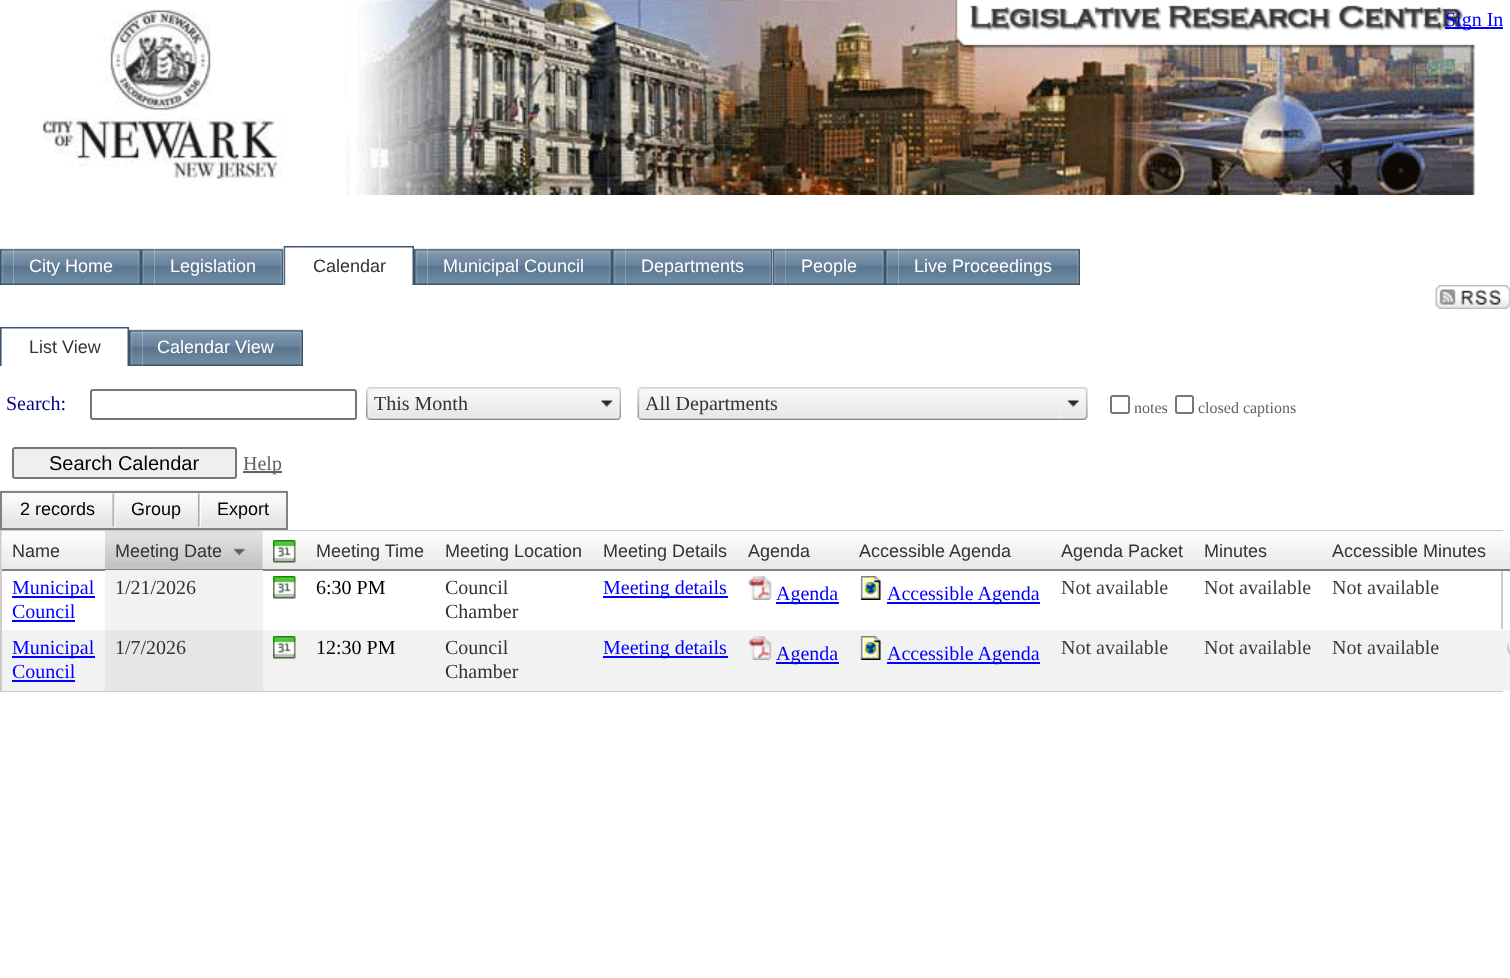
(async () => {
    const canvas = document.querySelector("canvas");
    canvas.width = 1510;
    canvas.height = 978;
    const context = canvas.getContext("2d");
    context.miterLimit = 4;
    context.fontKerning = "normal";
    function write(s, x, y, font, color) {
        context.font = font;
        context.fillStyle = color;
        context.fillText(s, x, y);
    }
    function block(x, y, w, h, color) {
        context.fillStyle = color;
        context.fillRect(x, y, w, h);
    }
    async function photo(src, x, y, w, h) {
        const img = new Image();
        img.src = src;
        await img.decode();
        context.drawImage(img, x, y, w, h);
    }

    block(0, 0, 1510, 978, "rgb(255, 255, 255)");
    await photo("media/1.png", 42, 0, 1433, 195);
    block(1445, 27, 58, 2, "rgb(0, 0, 255)");
    write("Sign In", 1445, 26, "20px Liberation Serif", "rgb(0, 0, 255)");
    await photo("media/2.png", 0, 248, 14, 37);
    await photo("media/3.png", 13, 248, 128, 37);
    write("City Home", 29, 272, "18px Liberation Sans", "rgb(255, 255, 255)");
    await photo("media/2.png", 141, 248, 14, 37);
    await photo("media/4.png", 154, 248, 130, 37);
    write("Legislation", 170, 272, "18px Liberation Sans", "rgb(255, 255, 255)");
    await photo("media/5.png", 283, 246, 14, 39);
    await photo("media/6.png", 297, 246, 117, 39);
    write("Calendar", 313, 272, "18px Liberation Sans", "rgb(51, 51, 51)");
    await photo("media/2.png", 414, 248, 14, 37);
    await photo("media/7.png", 427, 248, 185, 37);
    write("Municipal Council", 443, 272, "18px Liberation Sans", "rgb(255, 255, 255)");
    await photo("media/8.png", 612, 248, 14, 37);
    await photo("media/9.png", 625, 248, 148, 37);
    write("Departments", 641, 272, "18px Liberation Sans", "rgb(255, 255, 255)");
    await photo("media/10.png", 772, 248, 15, 37);
    await photo("media/11.png", 786, 248, 99, 37);
    write("People", 801, 272, "18px Liberation Sans", "rgb(255, 255, 255)");
    await photo("media/2.png", 885, 248, 14, 37);
    await photo("media/12.png", 898, 248, 182, 37);
    write("Live Proceedings", 914, 272, "18px Liberation Sans", "rgb(255, 255, 255)");
    await photo("media/13.png", 1435, 285, 75, 24);
    await photo("media/14.png", 0, 327, 14, 39);
    await photo("media/15.png", 13, 327, 116, 39);
    write("List View", 29, 353, "18px Liberation Sans", "rgb(51, 51, 51)");
    await photo("media/8.png", 129, 329, 14, 37);
    await photo("media/16.png", 142, 329, 161, 37);
    write("Calendar View", 157, 353, "18px Liberation Sans", "rgb(255, 255, 255)");
    write("Search:", 6, 410, "20px Liberation Serif", "rgb(0, 0, 128)");
    context.beginPath();
    context.roundRect(91, 390, 265, 29, 2);
    context.strokeStyle = "rgb(118, 118, 118)";
    context.lineWidth = 2;
    context.stroke();
    await photo("media/17.png", 366, 387, 228, 33);
    context.save();
    context.beginPath();
    context.rect(374, 393, 214, 24);
    context.clip();
    write("This Month", 374, 410, "20px Liberation Serif", "rgb(51, 51, 51)");
    context.restore();
    await photo("media/18.png", 594, 387, 27, 33);
    await photo("media/19.png", 637, 387, 424, 33);
    write("All Departments", 645, 410, "20px Liberation Serif", "rgb(51, 51, 51)");
    await photo("media/20.png", 1060, 387, 28, 33);
    context.beginPath();
    context.roundRect(1111, 396, 18, 17, 2);
    context.stroke();
    write("notes", 1134, 413, "16px Liberation Serif", "rgb(98, 98, 98)");
    context.beginPath();
    context.roundRect(1176, 396, 17, 17, 2);
    context.stroke();
    write("closed captions", 1198, 413, "16px Liberation Serif", "rgb(98, 98, 98)");
    context.fillStyle = "rgb(239, 239, 239)";
    context.beginPath();
    context.roundRect(13, 448, 223, 30, 2);
    context.fill();
    context.stroke();
    write("Search Calendar", 49, 470, "20px Liberation Sans", "rgb(0, 0, 0)");
    block(243, 471, 39, 2, "rgb(98, 98, 98)");
    write("Help", 243, 470, "20px Liberation Serif", "rgb(98, 98, 98)");
    block(2, 519, 284, 9, "rgb(230, 230, 230)");
    await photo("media/21.png", 0, 490, 288, 29);
    context.strokeStyle = "rgb(130, 130, 130)";
    context.strokeRect(1, 492, 286, 37);
    write("2 records", 20, 515, "18px Liberation Sans", "rgb(0, 0, 0)");
    await photo("media/22.png", 112, 493, 4, 34);
    write("Group", 131, 515, "18px Liberation Sans", "rgb(0, 0, 0)");
    await photo("media/23.png", 198, 493, 4, 34);
    write("Export", 217, 515, "18px Liberation Sans", "rgb(0, 0, 0)");
    context.strokeStyle = "rgb(204, 204, 204)";
    context.strokeRect(1, 531, 1501, 160);
    block(263, 568, 43, 1, "rgb(234, 234, 234)");
    block(105, 531, 158, 38, "rgb(196, 196, 196)");
    await photo("media/27.png", 105, 531, 158, 31);
    await photo("media/24.png", 262, 531, 44, 38);
    block(263, 569, 1247, 2, "rgb(130, 130, 130)");
    await photo("media/25.png", 273, 540, 23, 23);
    block(2, 531, 103, 38, "rgb(234, 234, 234)");
    await photo("media/26.png", 1, 531, 104, 38);
    block(2, 569, 103, 2, "rgb(130, 130, 130)");
    write("Name", 12, 557, "18px Liberation Sans", "rgb(51, 51, 51)");
    block(105, 569, 158, 1, "rgb(130, 130, 130)");
    write("Meeting Date", 115, 557, "18px Liberation Sans", "rgb(51, 51, 51)");
    await photo("media/28.png", 233, 548, 12, 8);
    block(306, 531, 1204, 38, "rgb(234, 234, 234)");
    await photo("media/29.png", 306, 531, 129, 30);
    write("Meeting Time", 316, 557, "18px Liberation Sans", "rgb(51, 51, 51)");
    await photo("media/30.png", 435, 531, 158, 30);
    write("Meeting Location", 445, 557, "18px Liberation Sans", "rgb(51, 51, 51)");
    await photo("media/31.png", 592, 531, 146, 30);
    write("Meeting Details", 603, 557, "18px Liberation Sans", "rgb(51, 51, 51)");
    await photo("media/32.png", 738, 531, 111, 30);
    write("Agenda", 748, 557, "18px Liberation Sans", "rgb(51, 51, 51)");
    await photo("media/33.png", 849, 531, 201, 30);
    write("Accessible Agenda", 859, 557, "18px Liberation Sans", "rgb(51, 51, 51)");
    await photo("media/34.png", 1050, 531, 144, 30);
    write("Agenda Packet", 1061, 557, "18px Liberation Sans", "rgb(51, 51, 51)");
    await photo("media/35.png", 1194, 531, 128, 30);
    write("Minutes", 1204, 557, "18px Liberation Sans", "rgb(51, 51, 51)");
    await photo("media/36.png", 1321, 531, 176, 30);
    write("Accessible Minutes", 1332, 557, "18px Liberation Sans", "rgb(51, 51, 51)");
    await photo("media/37.png", 1497, 531, 13, 30);
    block(12, 596, 83, 2, "rgb(0, 0, 255)");
    write("Municipal", 12, 594, "20px Liberation Serif", "rgb(0, 0, 255)");
    write("Council", 12, 618, "20px Liberation Serif", "rgb(0, 0, 255)");
    block(12, 620, 63, 2, "rgb(0, 0, 255)");
    block(105, 570, 158, 60, "rgb(242, 242, 242)");
    write("1/21/2026", 115, 594, "20px Liberation Serif", "rgb(51, 51, 51)");
    await photo("media/38.png", 273, 576, 23, 23);
    write("6:30 PM", 316, 594, "20px Liberation Serif", "rgb(0, 0, 0)");
    write("Council", 445, 594, "20px Liberation Serif", "rgb(51, 51, 51)");
    write("Chamber", 445, 618, "20px Liberation Serif", "rgb(51, 51, 51)");
    block(603, 596, 125, 2, "rgb(0, 0, 255)");
    write("Meeting details", 603, 594, "20px Liberation Serif", "rgb(0, 0, 255)");
    await photo("media/39.png", 748, 576, 24, 24);
    block(776, 602, 63, 2, "rgb(0, 0, 255)");
    write("Agenda", 776, 600, "20px Liberation Serif", "rgb(0, 0, 255)");
    await photo("media/40.png", 860, 576, 21, 24);
    block(887, 602, 153, 2, "rgb(0, 0, 255)");
    write("Accessible Agenda", 887, 600, "20px Liberation Serif", "rgb(0, 0, 255)");
    write("Not available", 1061, 594, "20px Liberation Serif", "rgb(61, 61, 61)");
    write("Not available", 1204, 594, "20px Liberation Serif", "rgb(61, 61, 61)");
    write("Not available", 1332, 594, "20px Liberation Serif", "rgb(61, 61, 61)");
    block(1497, 629, 13, 1, "rgb(255, 255, 255)");
    block(2, 630, 1508, 59, "rgb(242, 242, 242)");
    block(2, 689, 103, 2, "rgb(242, 242, 242)");
    block(12, 656, 83, 2, "rgb(0, 0, 255)");
    write("Municipal", 12, 654, "20px Liberation Serif", "rgb(0, 0, 255)");
    write("Council", 12, 678, "20px Liberation Serif", "rgb(0, 0, 255)");
    block(12, 680, 63, 2, "rgb(0, 0, 255)");
    block(105, 630, 158, 61, "rgb(230, 230, 230)");
    write("1/7/2026", 115, 654, "20px Liberation Serif", "rgb(51, 51, 51)");
    block(263, 689, 1247, 2, "rgb(242, 242, 242)");
    await photo("media/41.png", 273, 636, 23, 23);
    write("12:30 PM", 316, 654, "20px Liberation Serif", "rgb(0, 0, 0)");
    write("Council", 445, 654, "20px Liberation Serif", "rgb(51, 51, 51)");
    write("Chamber", 445, 678, "20px Liberation Serif", "rgb(51, 51, 51)");
    block(603, 656, 125, 2, "rgb(0, 0, 255)");
    write("Meeting details", 603, 654, "20px Liberation Serif", "rgb(0, 0, 255)");
    await photo("media/42.png", 748, 636, 24, 24);
    block(776, 662, 63, 2, "rgb(0, 0, 255)");
    write("Agenda", 776, 660, "20px Liberation Serif", "rgb(0, 0, 255)");
    await photo("media/43.png", 860, 636, 21, 24);
    block(887, 662, 153, 2, "rgb(0, 0, 255)");
    write("Accessible Agenda", 887, 660, "20px Liberation Serif", "rgb(0, 0, 255)");
    write("Not available", 1061, 654, "20px Liberation Serif", "rgb(61, 61, 61)");
    write("Not available", 1204, 654, "20px Liberation Serif", "rgb(61, 61, 61)");
    write("Not available", 1332, 654, "20px Liberation Serif", "rgb(61, 61, 61)");
    await photo("media/44.png", 1507, 640, 3, 16);
})();
